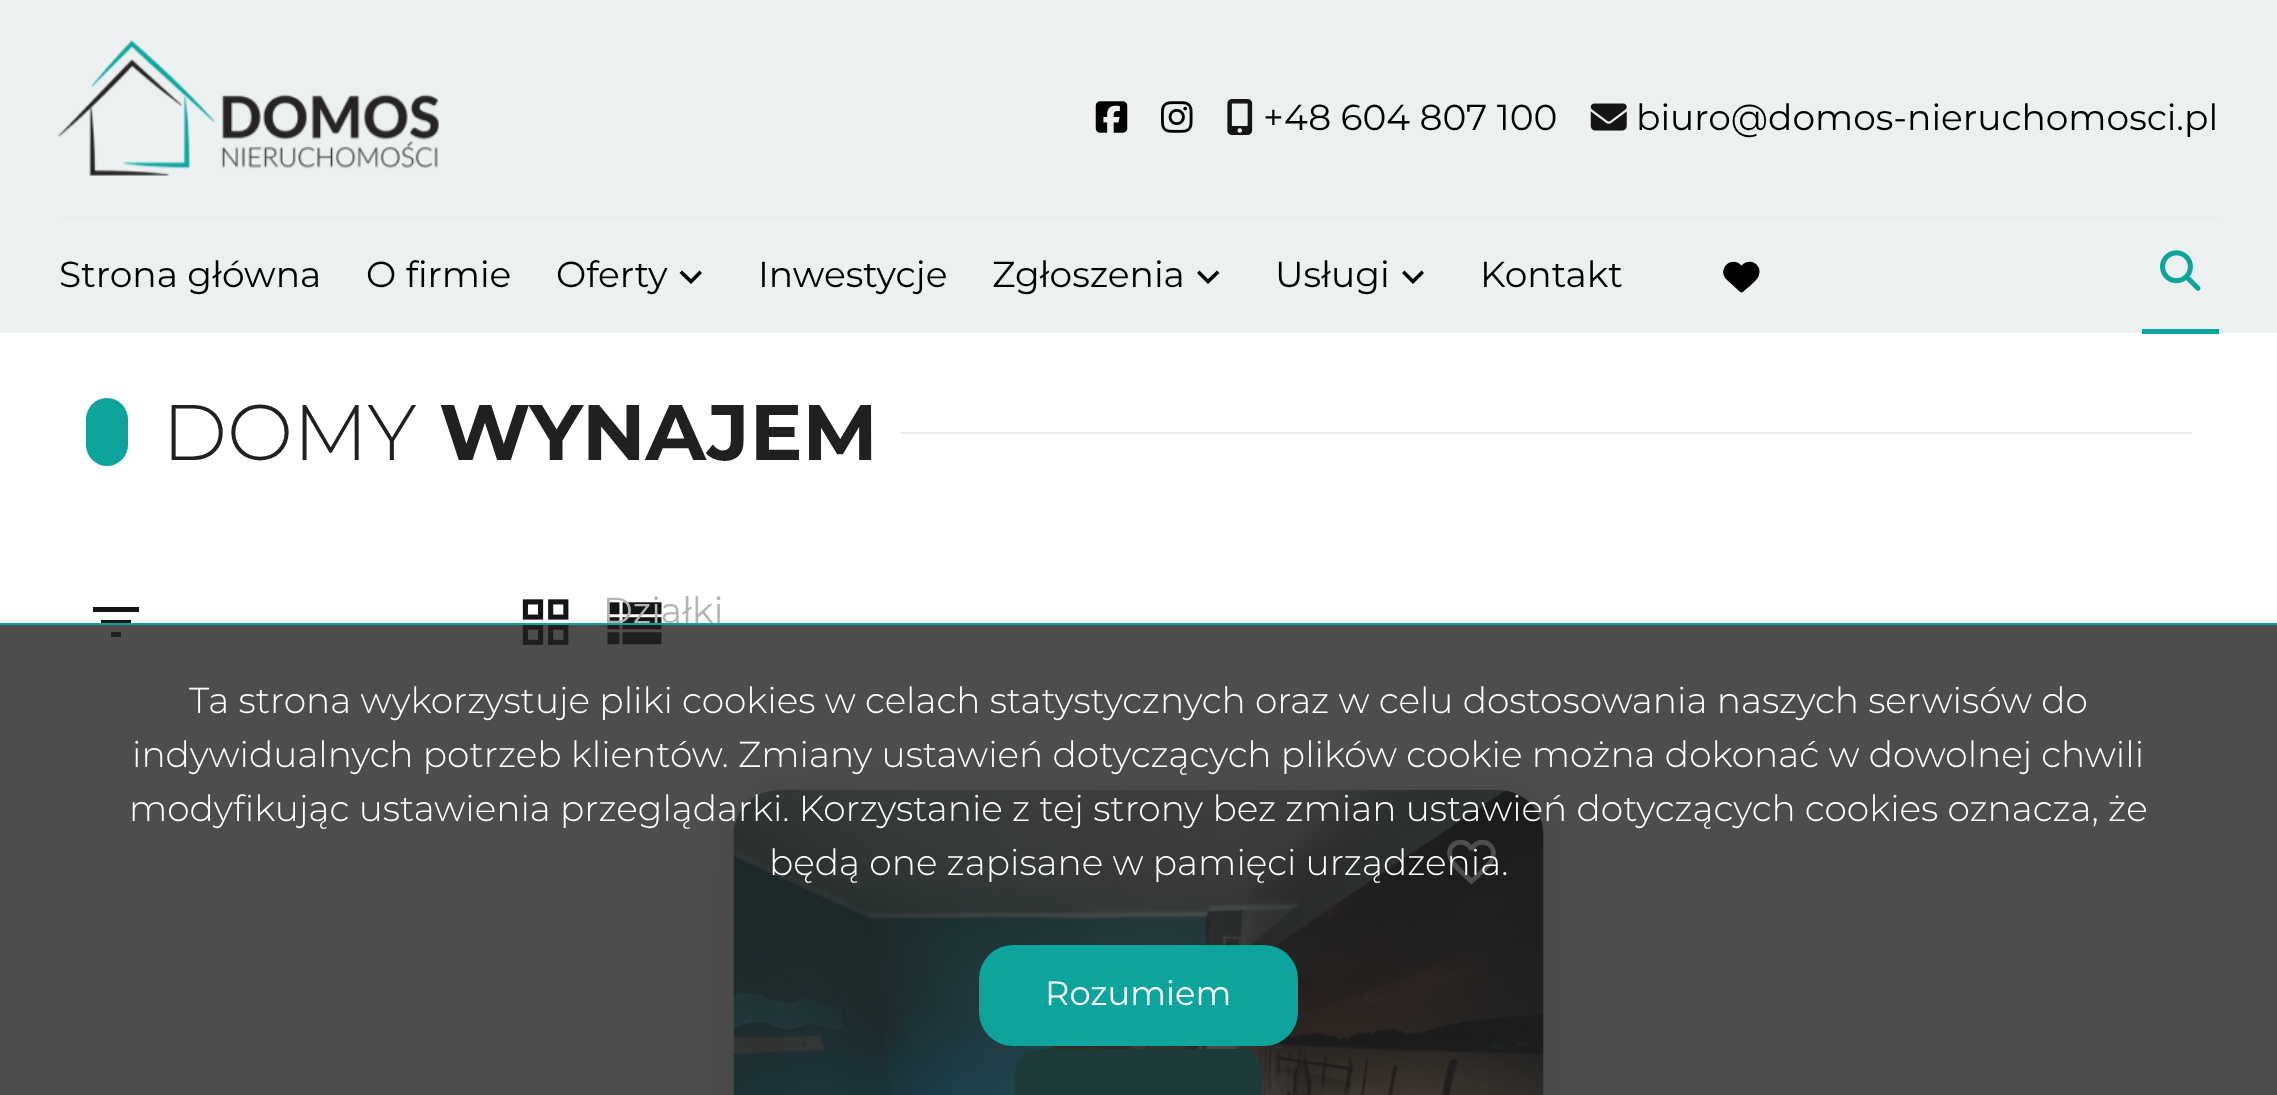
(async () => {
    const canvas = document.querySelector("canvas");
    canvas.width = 2277;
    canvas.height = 1095;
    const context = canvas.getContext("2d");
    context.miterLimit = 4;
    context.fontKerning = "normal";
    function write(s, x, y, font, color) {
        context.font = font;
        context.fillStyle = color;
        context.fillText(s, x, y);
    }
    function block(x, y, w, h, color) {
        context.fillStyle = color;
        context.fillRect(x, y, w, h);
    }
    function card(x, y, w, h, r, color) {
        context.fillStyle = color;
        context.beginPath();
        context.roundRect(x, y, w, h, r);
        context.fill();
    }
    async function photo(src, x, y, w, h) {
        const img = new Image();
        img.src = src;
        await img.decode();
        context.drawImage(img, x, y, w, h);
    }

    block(0, 0, 2277, 1095, "rgb(255, 255, 255)");
    block(0, 0, 2277, 333, "rgb(236, 240, 241)");
    block(59, 216, 2160, 5, "rgb(236, 237, 238)");
    await photo("media/1.png", 58, 40, 381, 136);
    await photo("media/2.png", 1095, 101, 33, 32);
    await photo("media/3.png", 1161, 101, 32, 32);
    await photo("media/4.png", 1227, 99, 26, 36);
    write("+48 604 807 100", 1263, 130, "36px Montserrat", "rgb(0, 0, 0)");
    await photo("media/5.png", 1590, 103, 37, 28);
    write("biuro@domos-nieruchomosci.pl", 1636, 130, "36px Montserrat", "rgb(0, 0, 0)");
    write("Strona główna", 59, 287, "36px Montserrat", "rgb(0, 0, 0)");
    write("O firmie", 366, 287, "36px Montserrat", "rgb(0, 0, 0)");
    write("Oferty", 556, 287, "36px Montserrat", "rgb(0, 0, 0)");
    context.beginPath();
    context.moveTo(699.5, 270.5);
    context.lineTo(702, 273);
    context.lineTo(691, 284);
    context.lineTo(679.5, 273);
    context.lineTo(682, 270.5);
    context.lineTo(691, 279);
    context.closePath();
    context.fill();
    await photo("media/8.png", 607, 602, 55, 43);
    write("Działki", 603, 623, "36px Montserrat", "rgb(180, 180, 180)");
    write("Inwestycje", 758, 287, "36px Montserrat", "rgb(0, 0, 0)");
    write("Zgłoszenia", 992, 287, "36px Montserrat", "rgb(0, 0, 0)");
    context.beginPath();
    context.moveTo(1217, 270.5);
    context.lineTo(1219.5, 273);
    context.lineTo(1208, 284);
    context.lineTo(1197, 273);
    context.lineTo(1199.5, 270.5);
    context.lineTo(1208, 279);
    context.closePath();
    context.fill();
    write("Usługi", 1275, 287, "36px Montserrat", "rgb(0, 0, 0)");
    context.beginPath();
    context.moveTo(1421.5, 270.5);
    context.lineTo(1424, 273);
    context.lineTo(1413, 284);
    context.lineTo(1402, 273);
    context.lineTo(1404.5, 270.5);
    context.lineTo(1413, 279);
    context.closePath();
    context.fill();
    write("Kontakt", 1480, 287, "36px Montserrat", "rgb(0, 0, 0)");
    context.beginPath();
    context.moveTo(1727, 280);
    context.lineTo(1739.5, 291.5);
    context.lineTo(1727, 280);
    context.lineTo(1737.5, 289.5);
    context.bezierCurveTo(1741.5, 293.5, 1741.5, 293.5, 1745.5, 289.5);
    context.lineTo(1750, 286);
    context.bezierCurveTo(1752.5, 283, 1757, 280, 1758.5, 276.5);
    context.bezierCurveTo(1763.5, 265.5, 1750.5, 256.5, 1741.5, 265.5);
    context.bezierCurveTo(1730.5, 254.5, 1716.5, 270.5, 1727, 280);
    context.closePath();
    context.fill();
    block(2142, 329, 77, 5, "rgb(12, 164, 156)");
    await photo("media/6.png", 2160, 250, 41, 41);
    card(86, 398, 42, 68, 21, "rgb(12, 164, 156)");
    write("DOMY", 162, 460, "300 78.75px Montserrat", "rgb(32, 32, 32)");
    write("WYNAJEM", 439, 460, "bold 78.75px Montserrat", "rgb(32, 32, 32)");
    block(900, 432, 1292, 2, "rgb(236, 236, 236)");
    context.fillStyle = "rgb(21, 21, 21)";
    context.beginPath();
    context.moveTo(101, 625);
    context.lineTo(101, 620);
    context.lineTo(131, 620);
    context.lineTo(131, 625);
    context.closePath();
    context.moveTo(93, 607);
    context.lineTo(139, 607);
    context.lineTo(139, 612);
    context.lineTo(93, 612);
    context.closePath();
    context.moveTo(111, 637);
    context.lineTo(111, 632);
    context.lineTo(121, 632);
    context.lineTo(121, 637);
    context.closePath();
    context.fill();
    await photo("media/7.png", 522, 599, 47, 46);
    context.fillStyle = "rgb(213, 213, 213)";
    context.filter = "blur(28px)";
    context.beginPath();
    context.roundRect(734, 790, 810, 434, 45);
    context.fill();
    context.filter = "none";
    await photo("media/9.png", 733, 790, 811, 305);
    await photo("media/10.png", 1447, 839, 49, 46);
    card(1015, 1049, 247, 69, 23, "rgb(12, 164, 156)");
    block(0, 625, 2277, 470, "rgba(32, 32, 32, 0.8)");
    block(0, 623, 2277, 2, "rgb(12, 164, 156)");
    write("Ta strona wykorzystuje pliki cookies w celach statystycznych oraz w celu dostosowania naszych serwisów do", 189, 713, "300 36px Montserrat", "rgb(255, 255, 255)");
    write("indywidualnych potrzeb klientów. Zmiany ustawień dotyczących plików cookie można dokonać w dowolnej chwili", 132, 767, "300 36px Montserrat", "rgb(255, 255, 255)");
    write("modyfikując ustawienia przeglądarki. Korzystanie z tej strony bez zmian ustawień dotyczących cookies oznacza, że", 129, 821, "300 36px Montserrat", "rgb(255, 255, 255)");
    write("będą one zapisane w pamięci urządzenia.", 769, 875, "300 36px Montserrat", "rgb(255, 255, 255)");
    card(979, 945, 319, 101, 34, "rgb(12, 164, 156)");
    write("Rozumiem", 1045, 1005, "33.75px Montserrat", "rgb(255, 255, 255)");
})();
